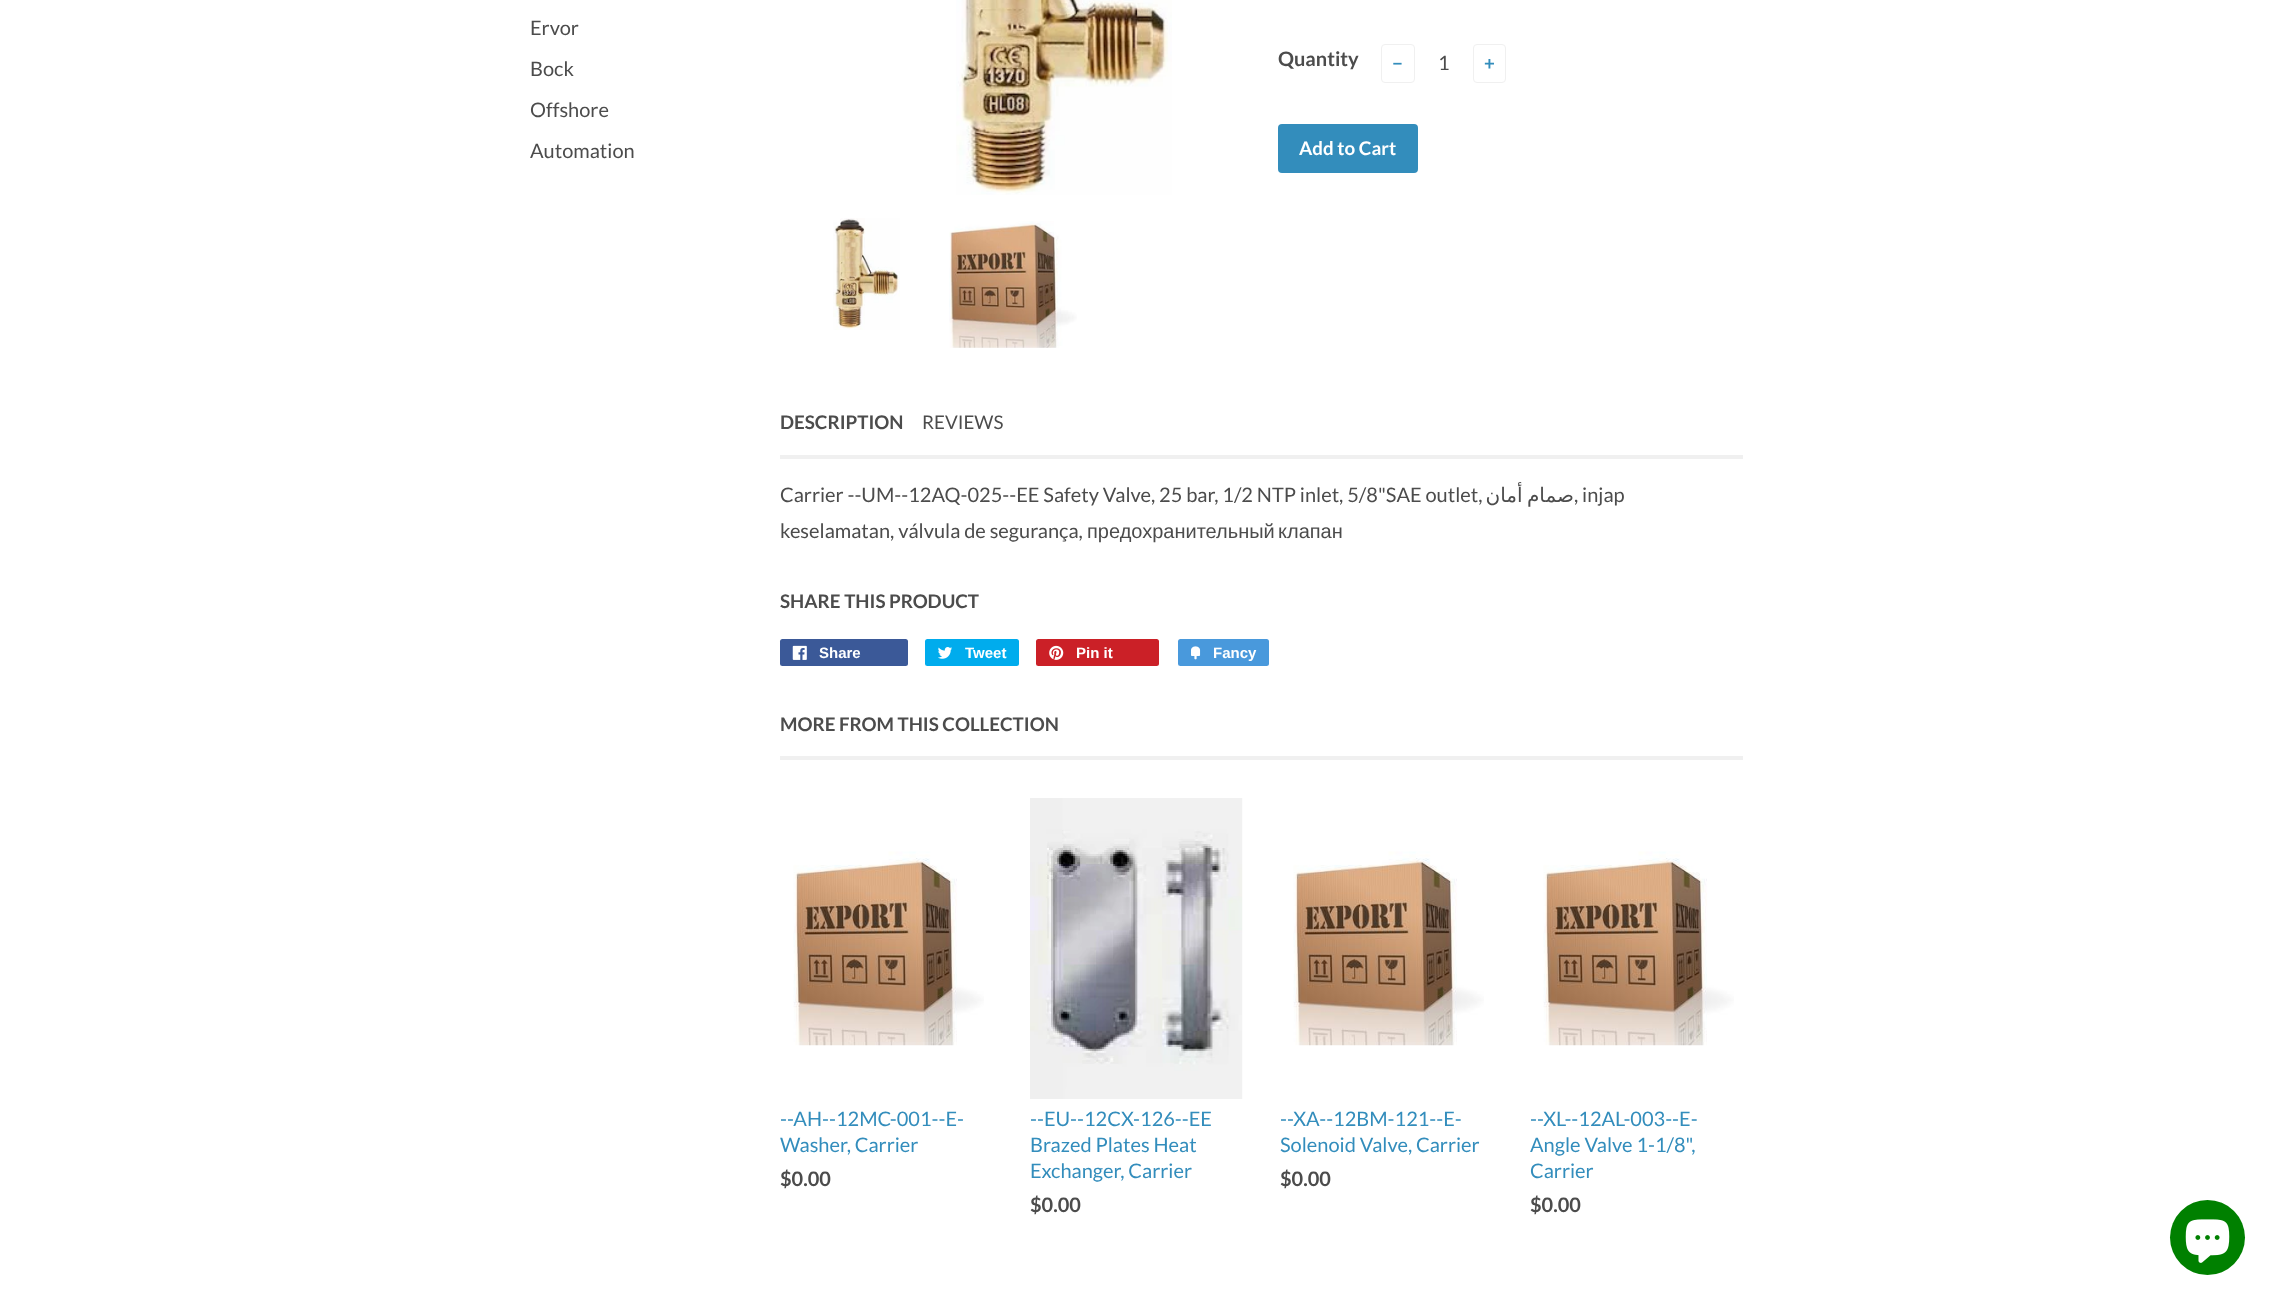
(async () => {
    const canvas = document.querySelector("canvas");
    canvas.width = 2272;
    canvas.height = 1301;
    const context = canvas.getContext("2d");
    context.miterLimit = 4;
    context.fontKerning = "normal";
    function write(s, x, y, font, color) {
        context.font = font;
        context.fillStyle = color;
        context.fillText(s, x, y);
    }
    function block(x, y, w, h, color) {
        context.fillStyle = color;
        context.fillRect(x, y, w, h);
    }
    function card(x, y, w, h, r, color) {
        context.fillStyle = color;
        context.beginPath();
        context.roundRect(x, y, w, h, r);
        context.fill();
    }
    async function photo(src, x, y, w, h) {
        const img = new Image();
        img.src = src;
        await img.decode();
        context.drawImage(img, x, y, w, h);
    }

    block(0, 0, 2272, 1301, "rgb(255, 255, 255)");
    write("Ervor", 530, 35, "20px Lato", "rgb(76, 76, 76)");
    write("Bock", 530, 76, "20px Lato", "rgb(76, 76, 76)");
    write("Offshore", 530, 117, "20px Lato", "rgb(76, 76, 76)");
    write("Automation", 530, 158, "20px Lato", "rgb(76, 76, 76)");
    await photo("media/1.png", 956, 0, 216, 195);
    write("Quantity", 1278, 66, "bold 20px Lato", "rgb(76, 76, 76)");
    context.beginPath();
    context.roundRect(1381.5, 44.5, 33, 38, 3.5);
    context.strokeStyle = "rgb(240, 240, 240)";
    context.stroke();
    write("−", 1392, 70, "bold 18.75px Lato", "rgb(51, 141, 188)");
    write("1", 1438, 70, "20px Lato", "rgb(76, 76, 76)");
    context.beginPath();
    context.roundRect(1473.5, 44.5, 32, 38, 3.5);
    context.stroke();
    write("+", 1484, 70, "bold 18.75px Lato", "rgb(51, 141, 188)");
    card(1278, 124, 140, 49, 4, "rgb(51, 141, 188)");
    write("Add to Cart", 1299, 155, "bold 18.75px Lato", "rgb(255, 255, 255)");
    await photo("media/2.png", 833, 218, 67, 112);
    await photo("media/3.png", 949, 221, 128, 127);
    block(780, 455, 963, 4, "rgb(240, 240, 240)");
    write("DESCRIPTION", 780, 429, "bold 18.75px Lato", "rgb(76, 76, 76)");
    write("REVIEWS", 922, 429, "18.75px Lato", "rgb(76, 76, 76)");
    write("Carrier --UM--12AQ-025--EE Safety Valve, 25 bar, 1/2 NTP inlet, 5/8\"SAE outlet,", 780, 502, "20px Lato", "rgb(76, 76, 76)");
    context.wordSpacing = "-2px";
    context.direction = "rtl";
    write("صمام أمان", 1574, 502, "20px DejaVu Sans", "rgb(76, 76, 76)");
    context.wordSpacing = "0px";
    context.direction = "ltr";
    write(", injap", 1574, 502, "20px Lato", "rgb(76, 76, 76)");
    write("keselamatan, válvula de segurança,", 780, 538, "20px Lato", "rgb(76, 76, 76)");
    write("предохранительный", 1087, 538, "20px Liberation Sans", "rgb(76, 76, 76)");
    write("клапан", 1278, 538, "20px Liberation Sans", "rgb(76, 76, 76)");
    write("SHARE THIS PRODUCT", 780, 608, "bold 18.75px Lato", "rgb(76, 76, 76)");
    card(780, 639, 128, 27, 2.5, "rgb(59, 89, 152)");
    await photo("media/4.png", 792, 645, 15, 15);
    write("Share", 819, 658, "bold 15px Liberation Sans", "rgb(255, 255, 255)");
    card(925, 639, 94, 27, 2.5, "rgb(0, 172, 237)");
    await photo("media/5.png", 938, 647, 14, 12);
    write("Tweet", 965, 658, "bold 15px Liberation Sans", "rgb(255, 255, 255)");
    card(1036, 639, 123, 27, 2.5, "rgb(203, 32, 39)");
    await photo("media/6.png", 1049, 645, 15, 15);
    write("Pin it", 1076, 658, "bold 15px Liberation Sans", "rgb(255, 255, 255)");
    card(1178, 639, 91, 27, 2.5, "rgb(73, 153, 220)");
    await photo("media/7.png", 1191, 646, 10, 14);
    write("Fancy", 1213, 658, "bold 15px Liberation Sans", "rgb(255, 255, 255)");
    block(780, 756, 963, 4, "rgb(240, 240, 240)");
    write("MORE FROM THIS COLLECTION", 780, 731, "bold 18.75px Lato", "rgb(76, 76, 76)");
    await photo("media/8.png", 793, 851, 191, 195);
    write("--AH--12MC-001--E-", 780, 1126, "20px Lato", "rgb(51, 141, 188)");
    write("Washer, Carrier", 780, 1152, "20px Lato", "rgb(51, 141, 188)");
    write("$0.00", 780, 1186, "bold 20px Lato", "rgb(76, 76, 76)");
    await photo("media/9.png", 1030, 798, 213, 301);
    write("--EU--12CX-126--EE", 1030, 1126, "20px Lato", "rgb(51, 141, 188)");
    write("Brazed Plates Heat", 1030, 1152, "20px Lato", "rgb(51, 141, 188)");
    write("Exchanger, Carrier", 1030, 1178, "20px Lato", "rgb(51, 141, 188)");
    write("$0.00", 1030, 1212, "bold 20px Lato", "rgb(76, 76, 76)");
    await photo("media/10.png", 1293, 851, 191, 195);
    write("--XA--12BM-121--E-", 1280, 1126, "20px Lato", "rgb(51, 141, 188)");
    write("Solenoid Valve, Carrier", 1280, 1152, "20px Lato", "rgb(51, 141, 188)");
    write("$0.00", 1280, 1186, "bold 20px Lato", "rgb(76, 76, 76)");
    await photo("media/10.png", 1543, 851, 191, 195);
    write("--XL--12AL-003--E-", 1530, 1126, "20px Lato", "rgb(51, 141, 188)");
    write("Angle Valve 1-1/8\",", 1530, 1152, "20px Lato", "rgb(51, 141, 188)");
    write("Carrier", 1530, 1178, "20px Lato", "rgb(51, 141, 188)");
    write("$0.00", 1530, 1212, "bold 20px Lato", "rgb(76, 76, 76)");
    context.fillStyle = "rgb(0, 128, 0)";
    context.beginPath();
    context.arc(2207.5, 1237.5, 37.5, 0, Math.PI * 2);
    context.fill();
    await photo("media/11.png", 2185, 1219, 45, 44);
})();
